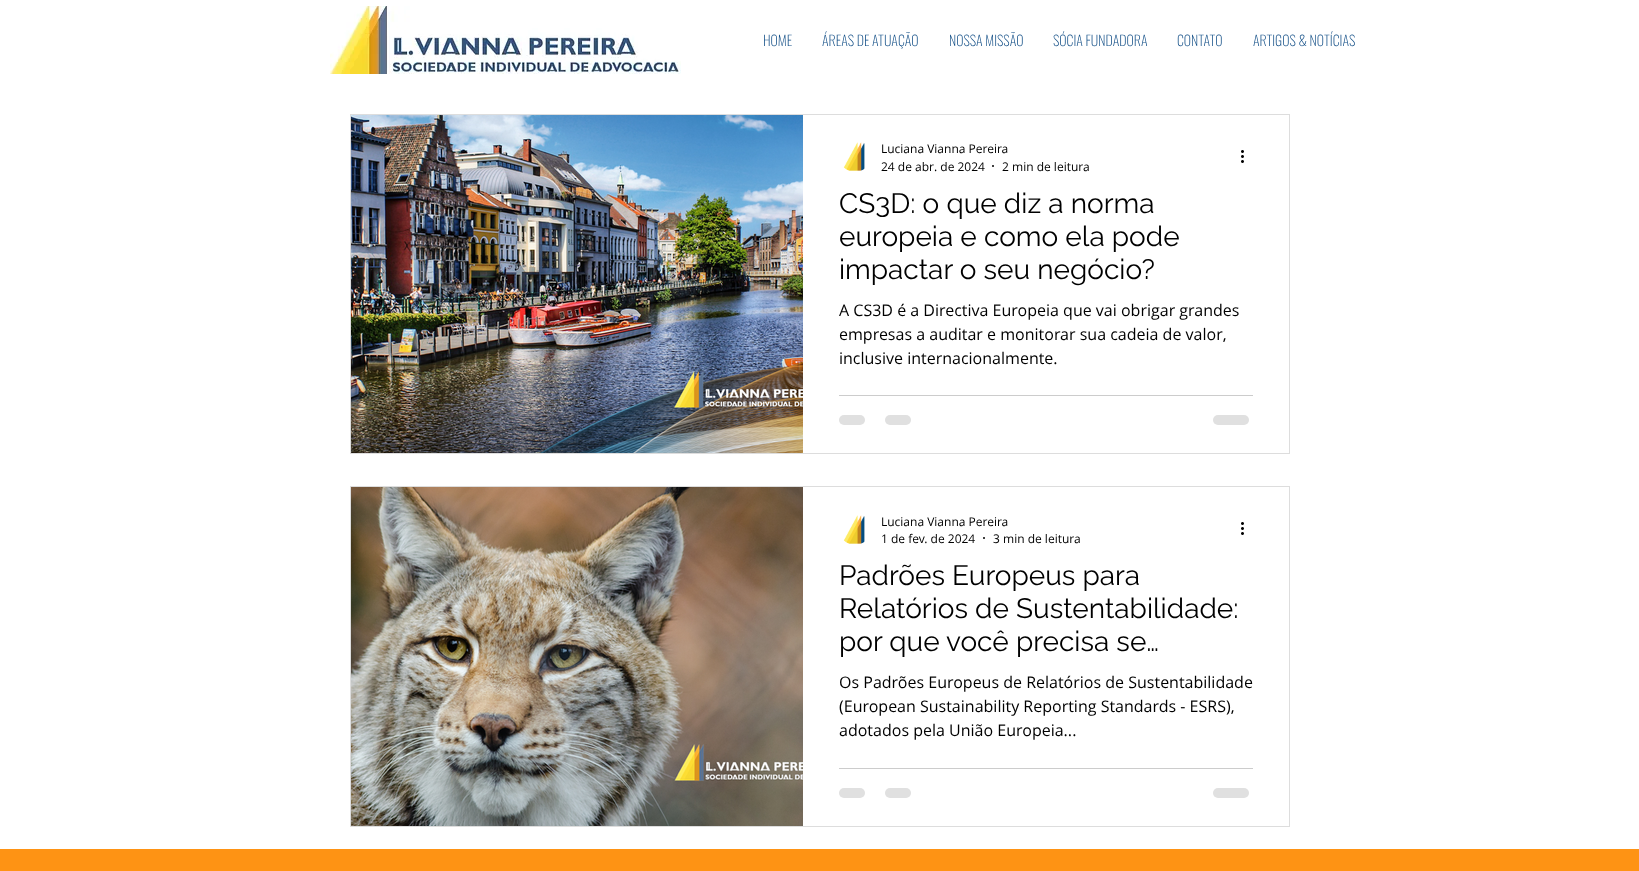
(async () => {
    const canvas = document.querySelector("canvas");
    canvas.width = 1639;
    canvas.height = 871;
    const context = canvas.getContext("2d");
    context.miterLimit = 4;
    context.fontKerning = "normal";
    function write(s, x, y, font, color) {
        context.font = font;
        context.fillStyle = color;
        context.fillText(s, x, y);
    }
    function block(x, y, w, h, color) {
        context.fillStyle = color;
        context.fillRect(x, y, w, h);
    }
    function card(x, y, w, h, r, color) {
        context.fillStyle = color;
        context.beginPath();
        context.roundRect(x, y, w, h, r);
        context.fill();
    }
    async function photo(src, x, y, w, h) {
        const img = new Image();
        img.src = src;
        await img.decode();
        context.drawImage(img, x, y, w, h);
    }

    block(0, 0, 1639, 871, "rgb(255, 255, 255)");
    await photo("media/1.png", 330, 6, 351, 68);
    write("HOME", 763, 46, "200 14px Oswald", "rgb(15, 76, 133)");
    write("ÁREAS DE ATUAÇÃO", 822, 46, "200 14px Oswald", "rgb(15, 76, 133)");
    write("NOSSA MISSÃO", 949, 46, "200 14px Oswald", "rgb(15, 76, 133)");
    write("SÓCIA FUNDADORA", 1053, 46, "200 14px Oswald", "rgb(15, 76, 133)");
    write("CONTATO", 1177, 46, "200 14px Oswald", "rgb(15, 76, 133)");
    write("ARTIGOS & NOTÍCIAS", 1253, 46, "200 14px Oswald", "rgb(15, 76, 133)");
    context.strokeStyle = "rgb(221, 221, 221)";
    context.strokeRect(350.5, 114.5, 939, 339);
    await photo("media/2.png", 351, 115, 452, 338);
    await photo("media/3.png", 843, 142, 22, 29);
    write("Luciana Vianna Pereira", 881, 153, "12px Open Sans", "rgb(0, 0, 0)");
    write("24 de abr. de 2024", 881, 171, "12px Open Sans", "rgb(0, 0, 0)");
    context.beginPath();
    context.arc(993, 166, 1, 0, Math.PI * 2);
    context.fill();
    write("2 min de leitura", 1002, 171, "12px Open Sans", "rgb(0, 0, 0)");
    await photo("media/4.png", 1241, 150, 3, 13);
    write("CS3D: o que diz a norma", 839, 213, "28px Raleway", "rgb(0, 0, 0)");
    write("europeia e como ela pode", 839, 246, "28px Raleway", "rgb(0, 0, 0)");
    write("impactar o seu negócio?", 839, 279, "28px Raleway", "rgb(0, 0, 0)");
    write("A CS3D é a Directiva Europeia que vai obrigar grandes", 839, 316, "16px Open Sans", "rgb(0, 0, 0)");
    write("empresas a auditar e monitorar sua cadeia de valor,", 839, 340, "16px Open Sans", "rgb(0, 0, 0)");
    write("inclusive internacionalmente.", 839, 364, "16px Open Sans", "rgb(0, 0, 0)");
    block(839, 395, 414, 1, "rgb(204, 204, 204)");
    card(839, 415, 26, 10, 5, "rgb(224, 224, 224)");
    card(885, 415, 26, 10, 5, "rgb(224, 224, 224)");
    card(1213, 415, 36, 10, 5, "rgb(224, 224, 224)");
    context.strokeRect(350.5, 486.5, 939, 340);
    await photo("media/5.png", 351, 487, 452, 339);
    await photo("media/3.png", 843, 515, 22, 29);
    write("Luciana Vianna Pereira", 881, 526, "12px Open Sans", "rgb(0, 0, 0)");
    write("1 de fev. de 2024", 881, 543, "12px Open Sans", "rgb(0, 0, 0)");
    context.beginPath();
    context.arc(984, 538, 1, 0, Math.PI * 2);
    context.fill();
    write("3 min de leitura", 993, 543, "12px Open Sans", "rgb(0, 0, 0)");
    await photo("media/4.png", 1241, 522, 3, 13);
    write("Padrões Europeus para", 839, 585, "28px Raleway", "rgb(0, 0, 0)");
    write("Relatórios de Sustentabilidade:", 839, 618, "28px Raleway", "rgb(0, 0, 0)");
    write("por que você precisa se…", 839, 651, "28px Raleway", "rgb(0, 0, 0)");
    write("Os Padrões Europeus de Relatórios de Sustentabilidade", 839, 688, "16px Open Sans", "rgb(0, 0, 0)");
    write("(European Sustainability Reporting Standards - ESRS),", 839, 712, "16px Open Sans", "rgb(0, 0, 0)");
    write("adotados pela União Europeia...", 839, 736, "16px Open Sans", "rgb(0, 0, 0)");
    block(839, 768, 414, 1, "rgb(204, 204, 204)");
    card(839, 788, 26, 10, 5, "rgb(224, 224, 224)");
    card(885, 788, 26, 10, 5, "rgb(224, 224, 224)");
    card(1213, 788, 36, 10, 5, "rgb(224, 224, 224)");
    block(0, 849, 1639, 22, "rgb(254, 147, 20)");
})();
